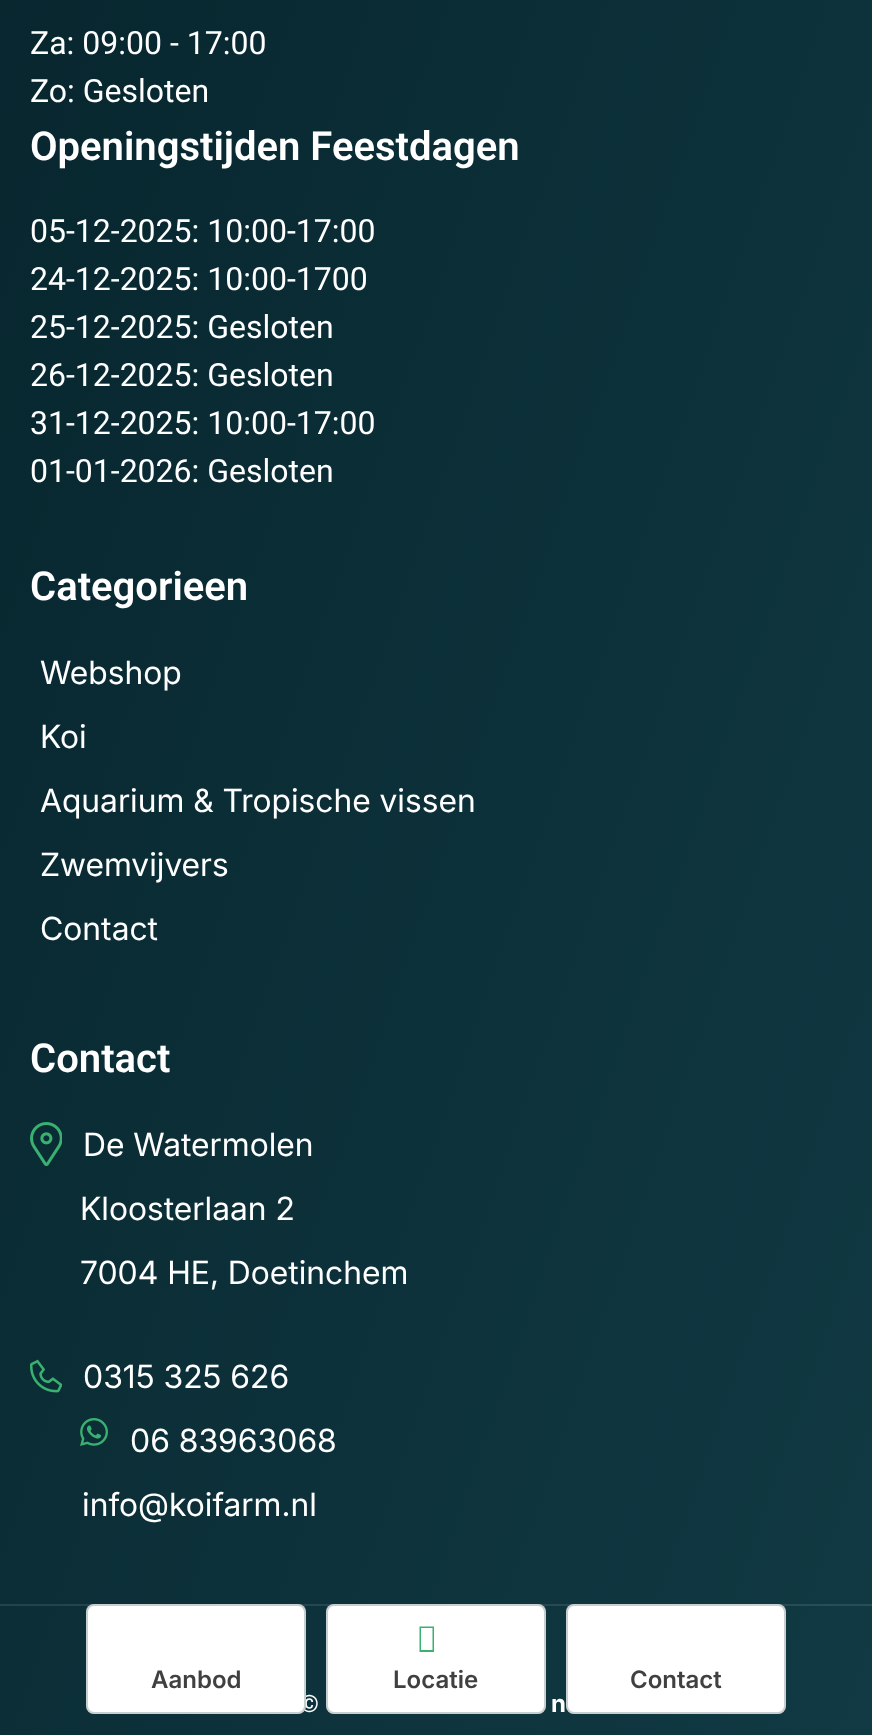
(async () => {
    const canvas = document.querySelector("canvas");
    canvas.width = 872;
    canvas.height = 1735;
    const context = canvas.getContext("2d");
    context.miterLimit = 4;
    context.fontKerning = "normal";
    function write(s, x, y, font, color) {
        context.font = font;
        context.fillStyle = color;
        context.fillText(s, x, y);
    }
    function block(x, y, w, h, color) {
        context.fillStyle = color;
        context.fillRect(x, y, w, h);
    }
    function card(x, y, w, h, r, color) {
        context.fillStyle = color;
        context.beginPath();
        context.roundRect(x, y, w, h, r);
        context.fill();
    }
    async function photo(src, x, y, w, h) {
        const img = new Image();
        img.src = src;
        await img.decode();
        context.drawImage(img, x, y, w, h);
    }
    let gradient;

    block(0, 0, 872, 1735, "rgb(255, 255, 255)");
    gradient = context.createLinearGradient(-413, 463, 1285, 1047);
    gradient.addColorStop(0, "rgb(6, 35, 43)");
    gradient.addColorStop(1, "rgb(18, 60, 70)");
    context.fillStyle = gradient;
    context.fillRect(0, 0, 872, 1735);
    gradient = context.createLinearGradient(-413, 463, 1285, 1047);
    gradient.addColorStop(0, "rgb(31, 57, 64)");
    gradient.addColorStop(1, "rgb(42, 80, 89)");
    context.fillStyle = gradient;
    context.fillRect(0, 1604, 872, 2);
    write("Za: 09:00 - 17:00", 30, 54, "32px Roboto", "rgb(255, 255, 255)");
    write("Zo: Gesloten", 30, 102, "32px Roboto", "rgb(255, 255, 255)");
    write("Openingstijden Feestdagen", 30, 160, "600 40px Roboto", "rgb(255, 255, 255)");
    write("05-12-2025: 10:00-17:00", 30, 242, "32px Roboto", "rgb(255, 255, 255)");
    write("24-12-2025: 10:00-1700", 30, 290, "32px Roboto", "rgb(255, 255, 255)");
    write("25-12-2025: Gesloten", 30, 338, "32px Roboto", "rgb(255, 255, 255)");
    write("26-12-2025: Gesloten", 30, 386, "32px Roboto", "rgb(255, 255, 255)");
    write("31-12-2025: 10:00-17:00", 30, 434, "32px Roboto", "rgb(255, 255, 255)");
    write("01-01-2026: Gesloten", 30, 482, "32px Roboto", "rgb(255, 255, 255)");
    write("Categorieen", 30, 600, "600 40px Roboto", "rgb(255, 255, 255)");
    write("Webshop", 40, 684, "32px Inter", "rgb(255, 255, 255)");
    write("Koi", 40, 748, "32px Inter", "rgb(255, 255, 255)");
    write("Aquarium & Tropische vissen", 40, 812, "32px Inter", "rgb(255, 255, 255)");
    write("Zwemvijvers", 40, 876, "32px Inter", "rgb(255, 255, 255)");
    write("Contact", 40, 940, "32px Inter", "rgb(255, 255, 255)");
    write("Contact", 30, 1072, "600 40px Roboto", "rgb(255, 255, 255)");
    await photo("media/1.png", 30, 1122, 32, 44);
    write("De Watermolen", 83, 1156, "32px Inter", "rgb(255, 255, 255)");
    write("Kloosterlaan 2", 80, 1220, "32px Inter", "rgb(255, 255, 255)");
    write("7004 HE, Doetinchem", 80, 1284, "32px Inter", "rgb(255, 255, 255)");
    await photo("media/2.png", 30, 1359, 32, 34);
    write("0315 325 626", 83, 1388, "32px Inter", "rgb(255, 255, 255)");
    await photo("media/3.png", 80, 1418, 28, 28);
    write("06 83963068", 130, 1452, "32px Inter", "rgb(255, 255, 255)");
    write("info@koifarm.nl", 82, 1516, "32px Inter", "rgb(255, 255, 255)");
    write("©", 300, 1712, "bold 24px Roboto", "rgb(255, 255, 255)");
    write("n", 551, 1712, "bold 24px Inter", "rgb(255, 255, 255)");
    card(86, 1604, 220, 110, 8, "rgb(255, 255, 255)");
    context.beginPath();
    context.roundRect(87, 1605, 218, 108, 7);
    context.strokeStyle = "rgba(6, 35, 43, 0.22)";
    context.lineWidth = 2;
    context.stroke();
    write("Aanbod", 151, 1688, "600 24px Inter", "rgb(64, 64, 64)");
    card(326, 1604, 220, 110, 8, "rgb(255, 255, 255)");
    context.beginPath();
    context.roundRect(327, 1605, 218, 108, 7);
    context.stroke();
    context.fillStyle = "rgb(58, 177, 112)";
    context.beginPath();
    context.moveTo(419.5, 1652);
    context.lineTo(419.5, 1626.5);
    context.lineTo(434, 1626.5);
    context.lineTo(434, 1652);
    context.closePath();
    context.moveTo(421, 1650);
    context.lineTo(432.5, 1650);
    context.lineTo(432.5, 1628);
    context.lineTo(421, 1628);
    context.closePath();
    context.fill();
    write("Locatie", 393, 1688, "600 24px Inter", "rgb(64, 64, 64)");
    card(566, 1604, 220, 110, 8, "rgb(255, 255, 255)");
    context.beginPath();
    context.roundRect(567, 1605, 218, 108, 7);
    context.stroke();
    write("Contact", 630, 1688, "600 24px Inter", "rgb(64, 64, 64)");
})();
